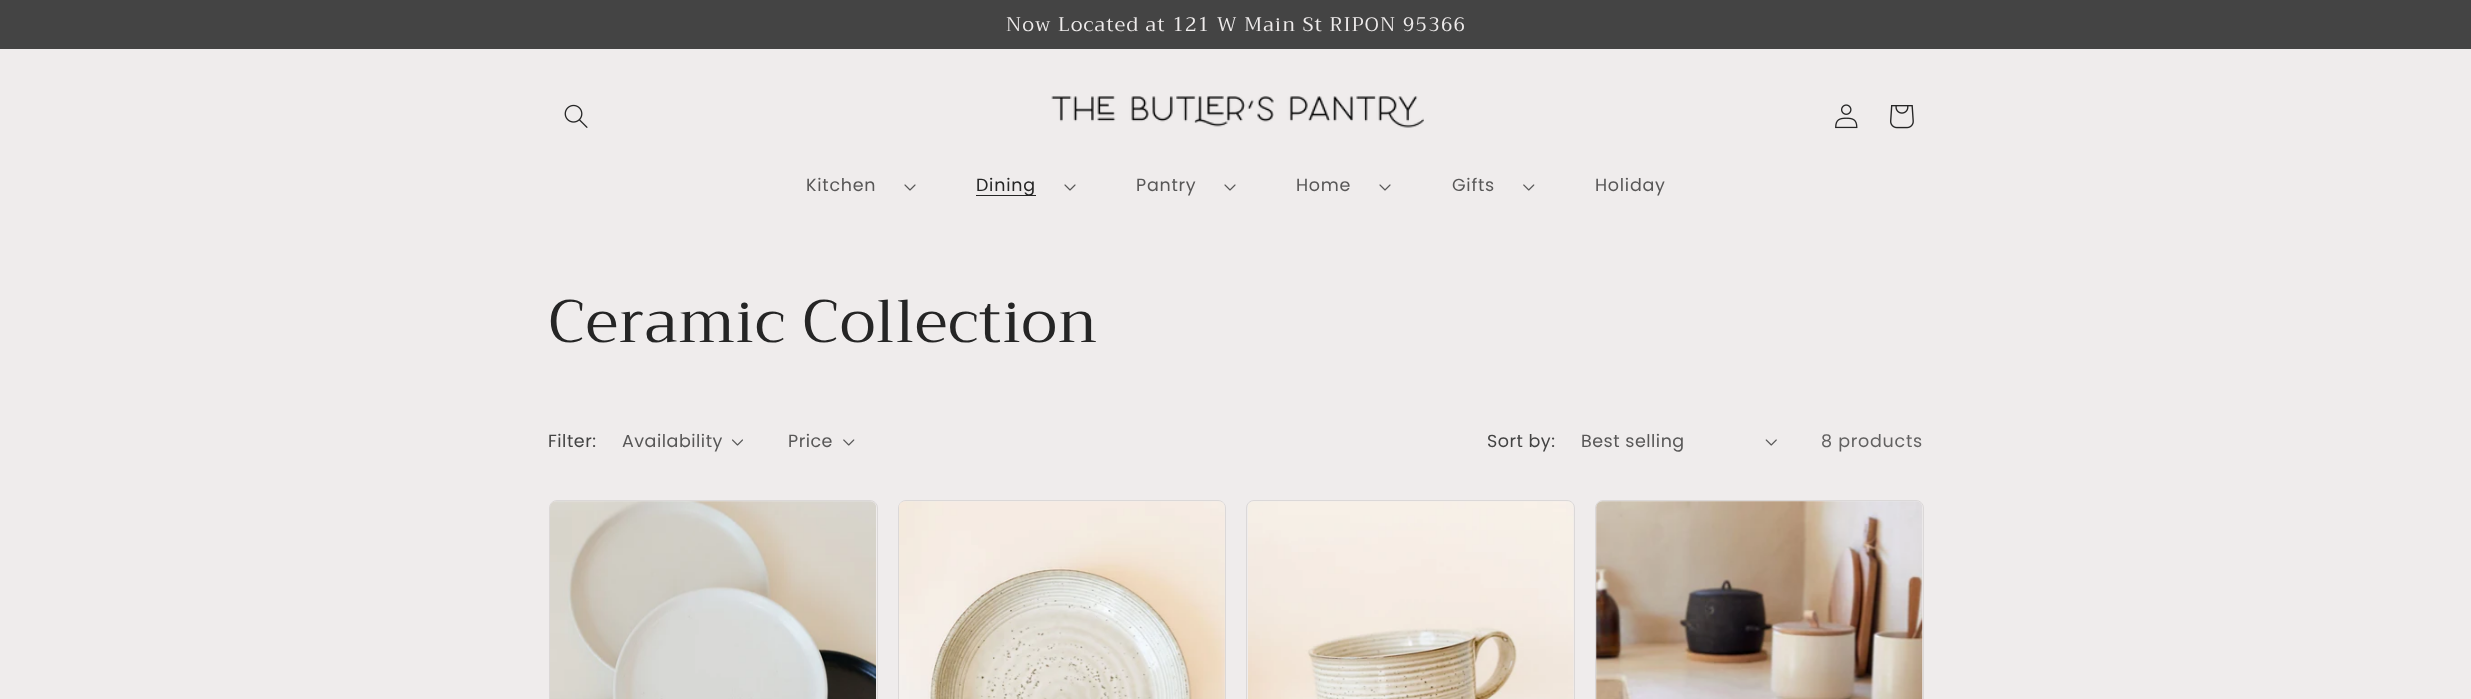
(async () => {
    const canvas = document.querySelector("canvas");
    canvas.width = 2471;
    canvas.height = 699;
    const context = canvas.getContext("2d");
    context.miterLimit = 4;
    context.fontKerning = "normal";
    function write(s, x, y, font, color) {
        context.font = font;
        context.fillStyle = color;
        context.fillText(s, x, y);
    }
    function block(x, y, w, h, color) {
        context.fillStyle = color;
        context.fillRect(x, y, w, h);
    }
    async function photo(src, x, y, w, h) {
        const img = new Image();
        img.src = src;
        await img.decode();
        context.drawImage(img, x, y, w, h);
    }

    block(0, 0, 2471, 699, "rgb(239, 236, 236)");
    block(0, 0, 2471, 49, "rgb(68, 68, 68)");
    context.letterSpacing = "1.25px";
    write("Now Located at 121 W Main St RIPON 95366", 1006, 31, "19.5px Trirong", "rgb(239, 236, 236)");
    await photo("media/1.png", 564, 104, 24, 24);
    await photo("media/2.png", 1051, 96, 373, 32);
    await photo("media/3.png", 1835, 104, 23, 25);
    await photo("media/4.png", 1890, 105, 24, 24);
    context.letterSpacing = "0.75px";
    write("Kitchen", 806, 191, "17.5px Poppins", "rgb(88, 87, 87)");
    await photo("media/5.png", 904, 184, 12, 7);
    block(976, 195, 60, 1, "rgb(37, 37, 37)");
    write("Dining", 976, 191, "17.5px Poppins", "rgb(37, 37, 37)");
    await photo("media/5.png", 1064, 184, 12, 7);
    write("Pantry", 1136, 191, "17.5px Poppins", "rgb(88, 87, 87)");
    await photo("media/5.png", 1224, 184, 12, 7);
    write("Home", 1296, 191, "17.5px Poppins", "rgb(88, 87, 87)");
    await photo("media/5.png", 1379, 184, 12, 7);
    write("Gifts", 1452, 191, "17.5px Poppins", "rgb(88, 87, 87)");
    await photo("media/6.png", 1523, 184, 12, 7);
    write("Holiday", 1595, 191, "17.5px Poppins", "rgb(88, 87, 87)");
    context.letterSpacing = "0.9px";
    write("Ceramic Collection", 548, 342, "60px Trirong", "rgb(37, 37, 37)");
    context.letterSpacing = "0.5px";
    write("Filter:", 548, 447, "17.5px Poppins", "rgb(67, 67, 67)");
    write("Availability", 622, 447, "17.5px Poppins", "rgb(88, 87, 87)");
    await photo("media/7.png", 732, 439, 11, 7);
    write("Price", 788, 447, "17.5px Poppins", "rgb(88, 87, 87)");
    await photo("media/6.png", 843, 439, 12, 7);
    write("Sort by:", 1487, 447, "17.5px Poppins", "rgb(67, 67, 67)");
    write("Best selling", 1581, 447, "17.5px Poppins", "rgb(88, 87, 87)");
    await photo("media/8.png", 1765, 439, 12, 7);
    context.letterSpacing = "0.75px";
    write("8 products", 1821, 447, "17.5px Poppins", "rgb(98, 97, 97)");
    context.beginPath();
    context.roundRect(549.5, 500.5, 328, 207, 7.5);
    context.strokeStyle = "rgb(219, 216, 216)";
    context.stroke();
    await photo("media/9.png", 550, 501, 326, 198);
    context.beginPath();
    context.roundRect(898.5, 500.5, 327, 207, 7.5);
    context.stroke();
    await photo("media/10.png", 899, 501, 326, 198);
    context.beginPath();
    context.roundRect(1246.5, 500.5, 328, 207, 7.5);
    context.stroke();
    await photo("media/11.png", 1248, 501, 326, 198);
    context.beginPath();
    context.roundRect(1595.5, 500.5, 328, 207, 7.5);
    context.stroke();
    await photo("media/12.png", 1596, 501, 327, 198);
})();
